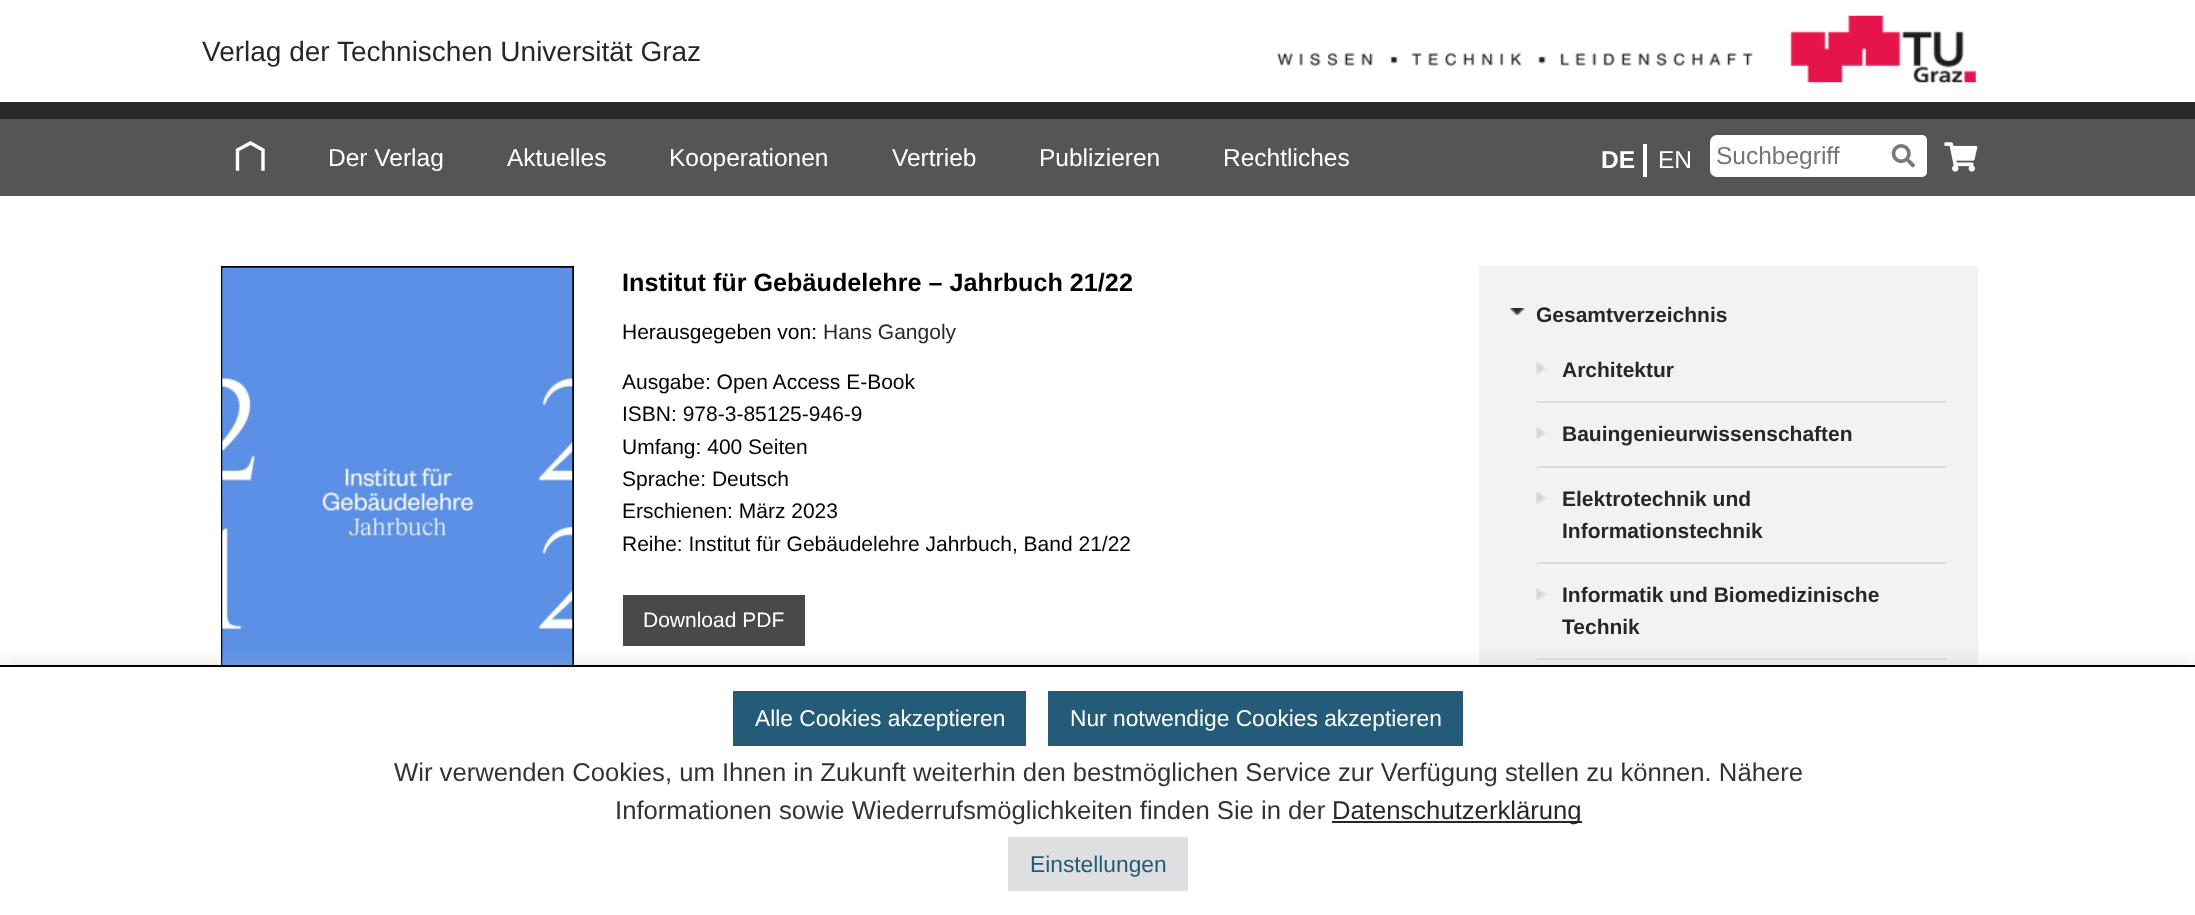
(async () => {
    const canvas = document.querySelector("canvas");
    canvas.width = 2195;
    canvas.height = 915;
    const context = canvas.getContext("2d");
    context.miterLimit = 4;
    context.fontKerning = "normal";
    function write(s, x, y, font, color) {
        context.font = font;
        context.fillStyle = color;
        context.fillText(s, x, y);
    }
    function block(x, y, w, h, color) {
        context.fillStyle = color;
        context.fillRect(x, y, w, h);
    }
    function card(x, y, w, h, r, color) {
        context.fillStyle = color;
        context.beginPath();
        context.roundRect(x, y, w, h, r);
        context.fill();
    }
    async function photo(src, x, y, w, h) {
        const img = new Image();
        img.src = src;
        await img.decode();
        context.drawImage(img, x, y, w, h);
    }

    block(0, 0, 2195, 915, "rgb(255, 255, 255)");
    write("Verlag der Technischen Universität Graz", 202, 61, "28px Liberation Sans", "rgb(39, 39, 39)");
    await photo("media/1.png", 1277, 15, 699, 68);
    block(0, 102, 2195, 17, "rgb(41, 41, 41)");
    block(0, 119, 2195, 77, "rgb(85, 85, 85)");
    context.beginPath();
    context.moveTo(237.5, 169);
    context.lineTo(237.5, 150);
    context.lineTo(250.5, 143);
    context.lineTo(263, 150);
    context.lineTo(263, 169);
    context.strokeStyle = "rgb(255, 255, 255)";
    context.lineWidth = 3.4;
    context.lineCap = "square";
    context.stroke();
    write("Der Verlag", 328, 166, "24.5px Liberation Sans", "rgb(255, 255, 255)");
    write("Aktuelles", 507, 166, "24.5px Liberation Sans", "rgb(255, 255, 255)");
    write("Kooperationen", 669, 166, "24.5px Liberation Sans", "rgb(255, 255, 255)");
    write("Vertrieb", 892, 166, "24.5px Liberation Sans", "rgb(255, 255, 255)");
    write("Publizieren", 1039, 166, "24.5px Liberation Sans", "rgb(255, 255, 255)");
    write("Rechtliches", 1223, 166, "24.5px Liberation Sans", "rgb(255, 255, 255)");
    block(1643, 144, 4, 33, "rgb(255, 255, 255)");
    write("DE", 1601, 168, "bold 24.5px Liberation Sans", "rgb(255, 255, 255)");
    write("EN", 1658, 168, "24.5px Liberation Sans", "rgb(255, 255, 255)");
    card(1710, 135, 217, 42, 7, "rgb(255, 255, 255)");
    write("Suchbegriff", 1716, 164, "24.5px Liberation Sans", "rgb(117, 117, 117)");
    card(1881, 135, 46, 42, 5, "rgb(255, 255, 255)");
    await photo("media/2.png", 1891, 144, 24, 24);
    await photo("media/3.png", 1944, 142, 34, 30);
    context.strokeStyle = "rgb(0, 0, 0)";
    context.lineWidth = 2;
    context.strokeRect(222, 267, 351, 486);
    await photo("media/4.png", 222, 267, 351, 398);
    write("Institut für Gebäudelehre – Jahrbuch 21/22", 622, 291, "bold 25.2px Liberation Sans", "rgb(0, 0, 0)");
    write("Herausgegeben von:", 622, 339, "21px Liberation Sans", "rgb(0, 0, 0)");
    write("Hans Gangoly", 823, 339, "21px Liberation Sans", "rgb(39, 39, 39)");
    write("Ausgabe: Open Access E-Book", 622, 389, "21px Liberation Sans", "rgb(0, 0, 0)");
    write("ISBN: 978-3-85125-946-9", 622, 421, "21px Liberation Sans", "rgb(0, 0, 0)");
    write("Umfang: 400 Seiten", 622, 454, "21px Liberation Sans", "rgb(0, 0, 0)");
    write("Sprache: Deutsch", 622, 486, "21px Liberation Sans", "rgb(0, 0, 0)");
    write("Erschienen: März 2023", 622, 518, "21px Liberation Sans", "rgb(0, 0, 0)");
    write("Reihe: Institut für Gebäudelehre Jahrbuch, Band 21/22", 622, 551, "21px Liberation Sans", "rgb(0, 0, 0)");
    block(623, 595, 182, 51, "rgb(73, 73, 73)");
    write("Download PDF", 643, 627, "21px Liberation Sans", "rgb(255, 255, 255)");
    block(1479, 266, 499, 399, "rgb(242, 242, 242)");
    await photo("media/5.png", 1510, 308, 15, 7);
    write("Gesamtverzeichnis", 1536, 322, "bold 21px Liberation Sans", "rgb(39, 39, 39)");
    await photo("media/6.png", 1536, 362, 10, 13);
    block(1537, 401, 409, 2, "rgb(221, 221, 221)");
    write("Architektur", 1562, 377, "bold 21px Liberation Sans", "rgb(39, 39, 39)");
    await photo("media/7.png", 1536, 427, 10, 13);
    block(1537, 466, 409, 2, "rgb(221, 221, 221)");
    write("Bauingenieurwissenschaften", 1562, 441, "bold 21px Liberation Sans", "rgb(39, 39, 39)");
    await photo("media/8.png", 1536, 491, 10, 13);
    block(1537, 562, 409, 2, "rgb(221, 221, 221)");
    write("Elektrotechnik und", 1562, 506, "bold 21px Liberation Sans", "rgb(39, 39, 39)");
    write("Informationstechnik", 1562, 538, "bold 21px Liberation Sans", "rgb(39, 39, 39)");
    await photo("media/7.png", 1536, 588, 10, 13);
    block(1537, 658, 409, 2, "rgb(221, 221, 221)");
    write("Informatik und Biomedizinische", 1562, 602, "bold 21px Liberation Sans", "rgb(39, 39, 39)");
    write("Technik", 1562, 634, "bold 21px Liberation Sans", "rgb(39, 39, 39)");
    context.fillStyle = "rgba(172, 171, 171, 0.3)";
    context.filter = "blur(9px)";
    context.beginPath();
    context.rect(0, 663, 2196, 251);
    context.fill();
    context.filter = "none";
    block(0, 667, 2195, 248, "rgb(255, 255, 255)");
    block(0, 665, 2195, 2, "rgb(0, 0, 0)");
    block(733, 691, 293, 55, "rgb(36, 91, 120)");
    write("Alle Cookies akzeptieren", 755, 726, "22.75px Liberation Sans", "rgb(255, 255, 255)");
    block(1048, 691, 415, 55, "rgb(36, 91, 120)");
    write("Nur notwendige Cookies akzeptieren", 1070, 726, "22.75px Liberation Sans", "rgb(255, 255, 255)");
    write("Wir verwenden Cookies, um Ihnen in Zukunft weiterhin den bestmöglichen Service zur Verfügung stellen zu können. Nähere", 394, 781, "25.67px Liberation Sans", "rgb(51, 51, 51)");
    write("Informationen sowie Wiederrufsmöglichkeiten finden Sie in der", 615, 819, "25.67px Liberation Sans", "rgb(51, 51, 51)");
    block(1332, 821, 250, 2, "rgb(39, 39, 39)");
    write("Datenschutzerklärung", 1332, 819, "25.67px Liberation Sans", "rgb(39, 39, 39)");
    block(1008, 837, 180, 54, "rgb(222, 223, 224)");
    write("Einstellungen", 1030, 872, "22.75px Liberation Sans", "rgb(36, 91, 120)");
})();
